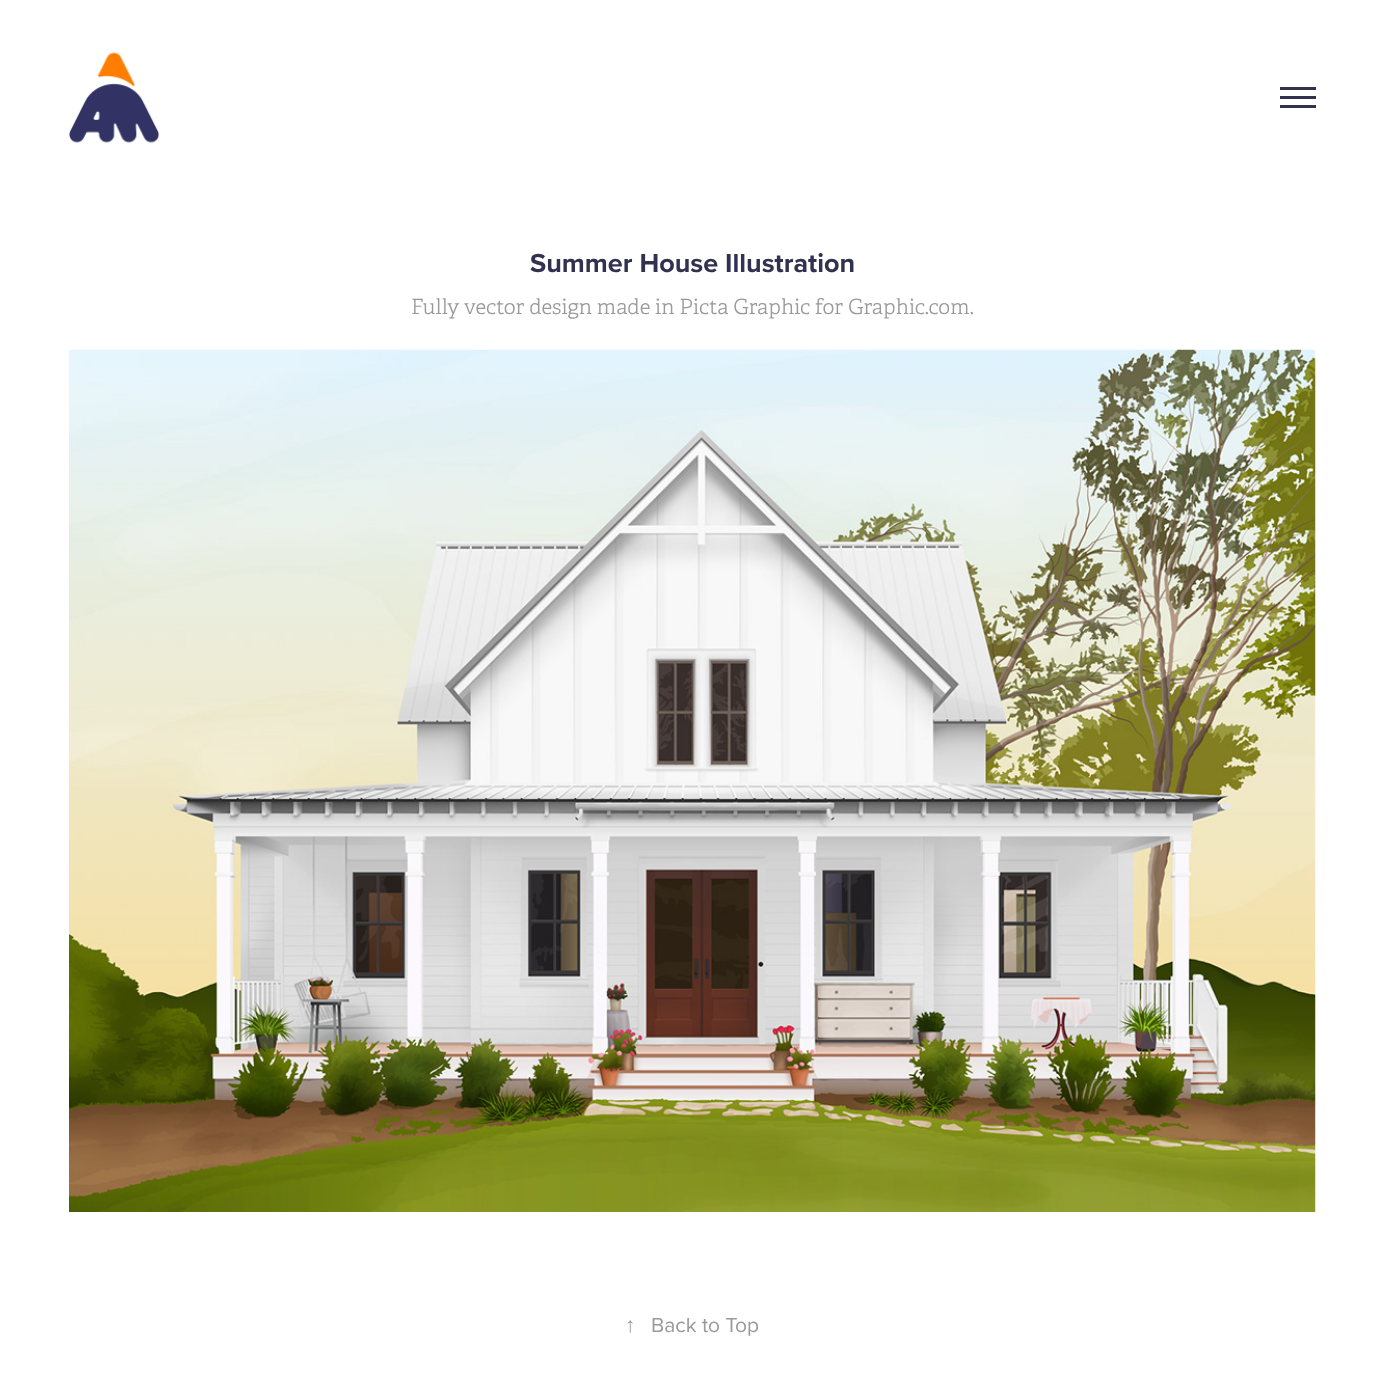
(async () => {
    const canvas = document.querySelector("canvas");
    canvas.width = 1384;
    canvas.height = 1375;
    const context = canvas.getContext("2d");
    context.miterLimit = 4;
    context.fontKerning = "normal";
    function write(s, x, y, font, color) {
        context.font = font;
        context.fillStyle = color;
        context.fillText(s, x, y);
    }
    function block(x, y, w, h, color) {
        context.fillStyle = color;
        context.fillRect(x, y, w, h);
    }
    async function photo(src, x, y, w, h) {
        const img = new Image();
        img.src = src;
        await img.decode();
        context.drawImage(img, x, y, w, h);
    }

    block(0, 0, 1384, 1375, "rgb(255, 255, 255)");
    await photo("media/1.png", 69, 52, 90, 91);
    block(1280, 87, 36, 3, "rgb(50, 50, 80)");
    block(1280, 96, 36, 3, "rgb(50, 50, 80)");
    block(1280, 105, 36, 3, "rgb(50, 50, 80)");
    write("Summer House Illustration", 530, 272, "bold 27px Proxima Nova", "rgb(50, 50, 80)");
    write("Fully vector design made in Picta Graphic for Graphic.com.", 411, 314, "300 21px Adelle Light", "rgb(153, 153, 153)");
    await photo("media/2.png", 69, 349, 1247, 863);
    write("↑", 625, 1332, "21px Liberation Serif", "rgb(153, 153, 153)");
    write("Back to Top", 651, 1332, "21px Proxima Nova", "rgb(153, 153, 153)");
})();
